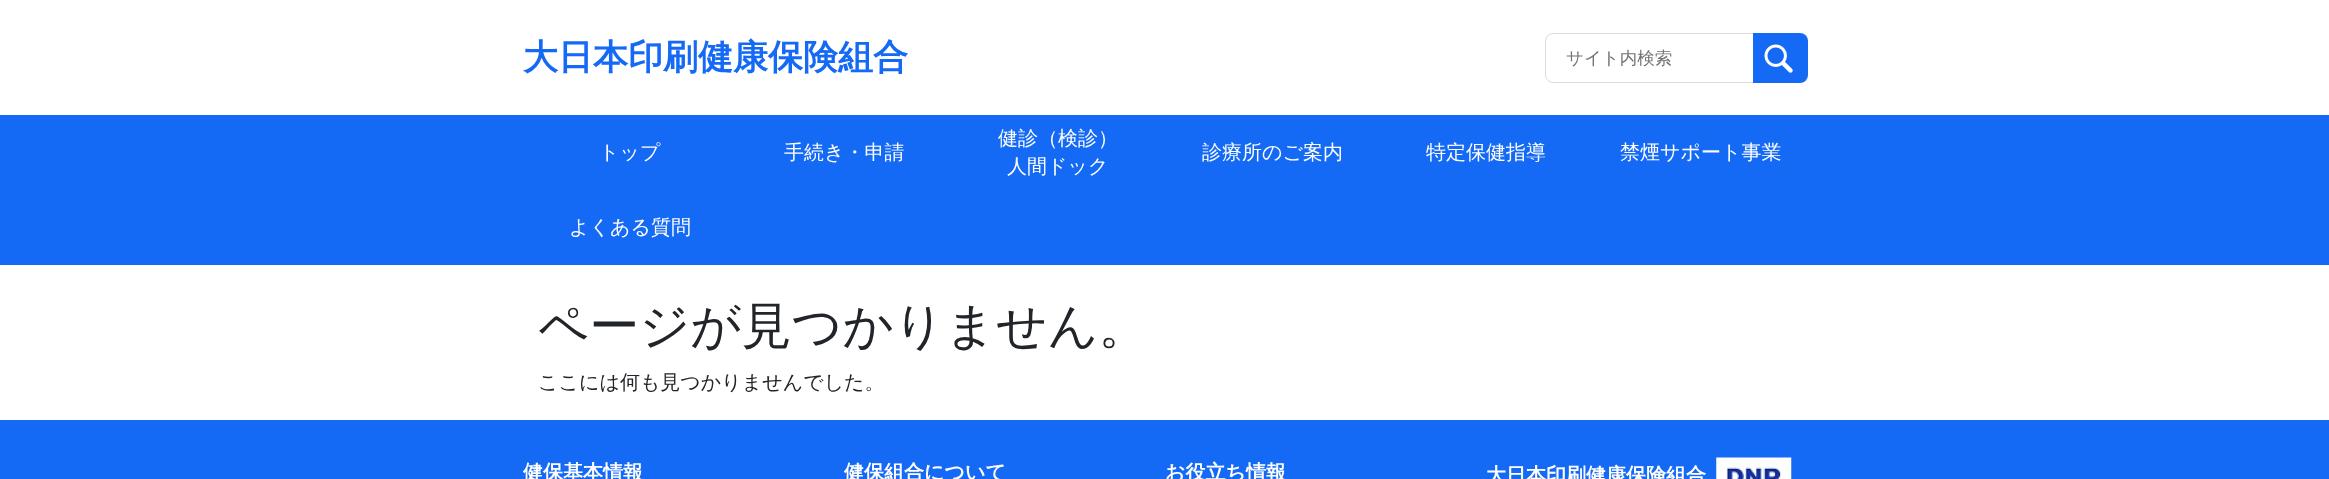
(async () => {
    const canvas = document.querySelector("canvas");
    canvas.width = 2329;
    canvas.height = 479;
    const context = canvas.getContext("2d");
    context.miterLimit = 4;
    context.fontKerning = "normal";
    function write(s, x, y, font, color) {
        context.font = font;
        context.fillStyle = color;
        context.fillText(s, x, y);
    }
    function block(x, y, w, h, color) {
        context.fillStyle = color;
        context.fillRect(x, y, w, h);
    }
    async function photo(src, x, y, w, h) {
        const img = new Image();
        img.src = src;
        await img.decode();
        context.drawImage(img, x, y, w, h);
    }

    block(0, 0, 2329, 479, "rgb(255, 255, 255)");
    write("大日本印刷健康保険組合", 523, 69, "bold 35px WenQuanYi Zen Hei", "rgb(20, 106, 245)");
    context.beginPath();
    context.roundRect(1545.5, 33.5, 208, 49, [7.5, 0, 0, 7.5]);
    context.strokeStyle = "rgb(221, 221, 221)";
    context.stroke();
    write("サイト内検索", 1566, 64, "500 17.5px WenQuanYi Zen Hei", "rgb(115, 115, 115)");
    context.fillStyle = "rgb(20, 106, 245)";
    context.beginPath();
    context.roundRect(1753, 33, 55, 50, [0, 8, 8, 0]);
    context.fill();
    await photo("media/1.png", 1764, 44, 29, 29);
    block(0, 115, 2329, 150, "rgb(20, 106, 245)");
    write("トップ", 599, 159, "500 20px WenQuanYi Zen Hei", "rgb(255, 255, 255)");
    write("手続き・申請", 784, 159, "500 20px WenQuanYi Zen Hei", "rgb(255, 255, 255)");
    write("健診（検診）", 998, 145, "500 20px WenQuanYi Zen Hei", "rgb(255, 255, 255)");
    write("人間ドック", 1007, 173, "500 20px WenQuanYi Zen Hei", "rgb(255, 255, 255)");
    write("診療所のご案内", 1202, 159, "500 20px WenQuanYi Zen Hei", "rgb(255, 255, 255)");
    write("特定保健指導", 1426, 159, "500 20px WenQuanYi Zen Hei", "rgb(255, 255, 255)");
    write("禁煙サポート事業", 1620, 159, "500 20px WenQuanYi Zen Hei", "rgb(255, 255, 255)");
    write("よくある質問", 569, 234, "500 20px WenQuanYi Zen Hei", "rgb(255, 255, 255)");
    write("ページが見つかりません。", 538, 343, "500 50px WenQuanYi Zen Hei", "rgb(33, 37, 41)");
    write("ここには何も見つかりませんでした。", 538, 389, "500 20px WenQuanYi Zen Hei", "rgb(33, 37, 41)");
    block(0, 420, 2329, 59, "rgb(20, 106, 245)");
    write("健保基本情報", 523, 479, "bold 20px WenQuanYi Zen Hei", "rgb(255, 255, 255)");
    write("健保組合について", 844, 479, "bold 20px WenQuanYi Zen Hei", "rgb(255, 255, 255)");
    write("お役立ち情報", 1165, 479, "bold 20px WenQuanYi Zen Hei", "rgb(255, 255, 255)");
    write("大日本印刷健康保険組合", 1486, 482, "bold 20px WenQuanYi Zen Hei", "rgb(255, 255, 255)");
    await photo("media/2.png", 1716, 457, 76, 22);
})();
